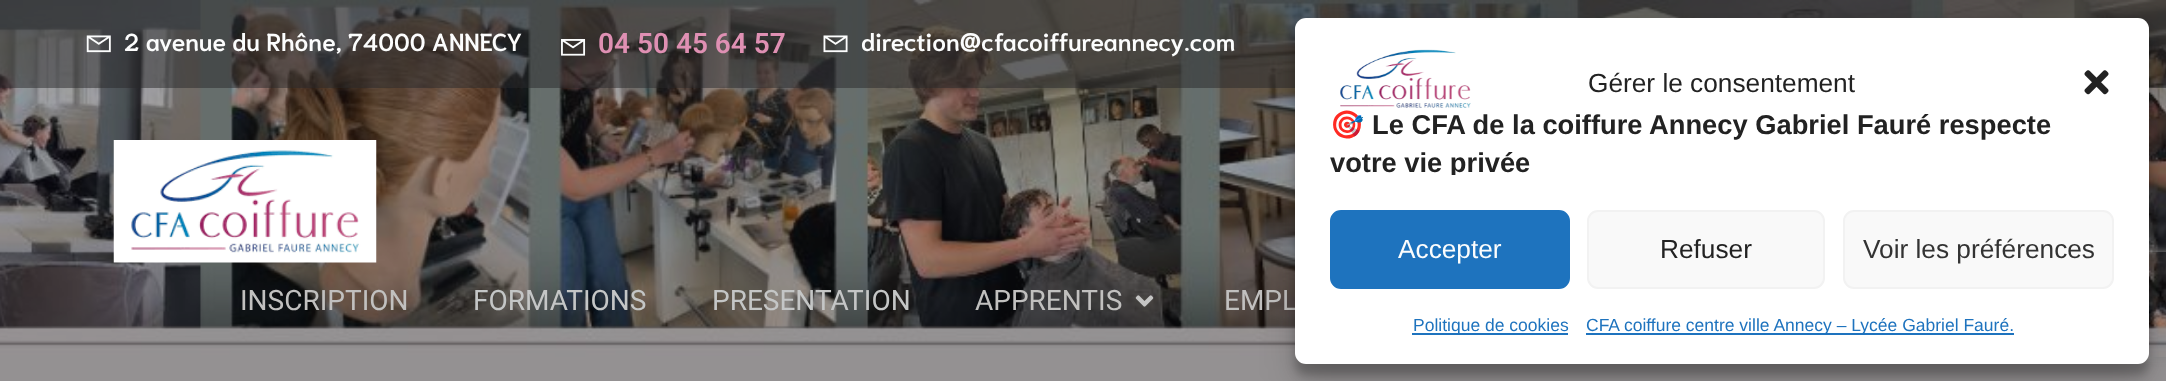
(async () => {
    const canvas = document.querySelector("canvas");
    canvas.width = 2166;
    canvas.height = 381;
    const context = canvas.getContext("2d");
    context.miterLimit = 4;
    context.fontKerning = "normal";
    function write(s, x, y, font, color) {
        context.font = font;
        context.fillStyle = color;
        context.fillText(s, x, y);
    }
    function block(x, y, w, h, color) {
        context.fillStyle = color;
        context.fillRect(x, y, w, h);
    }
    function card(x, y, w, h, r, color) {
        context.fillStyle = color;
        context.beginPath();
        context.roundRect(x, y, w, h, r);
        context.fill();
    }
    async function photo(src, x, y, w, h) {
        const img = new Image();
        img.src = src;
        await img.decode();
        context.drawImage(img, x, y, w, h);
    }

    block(0, 0, 2166, 381, "rgb(255, 255, 255)");
    await photo("media/1.png", 0, 0, 2166, 381);
    block(0, 0, 2166, 88, "rgba(39, 40, 42, 0.5)");
    await photo("media/2.png", 86, 35, 25, 18);
    write("2 avenue du Rhône, 74000 ANNECY", 124, 51, "600 24.5px Niramit", "rgb(252, 253, 253)");
    await photo("media/3.png", 561, 39, 25, 17);
    write("04 50 45 64 57", 598, 53, "600 28px Roboto", "rgb(223, 144, 179)");
    await photo("media/4.png", 823, 35, 25, 18);
    write("direction@cfacoiffureannecy.com", 861, 51, "600 24.5px Niramit", "rgb(252, 253, 253)");
    await photo("media/5.png", 113, 140, 264, 123);
    write("INSCRIPTION", 240, 310, "28px Roboto", "rgb(193, 192, 191)");
    write("FORMATIONS", 473, 310, "28px Roboto", "rgb(196, 198, 198)");
    write("PRESENTATION", 712, 310, "28px Roboto", "rgb(196, 198, 198)");
    write("APPRENTIS", 975, 310, "28px Roboto", "rgb(193, 192, 191)");
    await photo("media/6.png", 1135, 295, 19, 12);
    write("EMPL", 1224, 310, "28px Roboto", "rgb(193, 192, 191)");
    context.fillStyle = "rgba(0, 0, 0, 0.23)";
    context.filter = "blur(5px)";
    context.beginPath();
    context.roundRect(1295, 28, 854, 347, 11);
    context.fill();
    context.filter = "none";
    context.fillStyle = "rgba(0, 0, 0, 0.19)";
    context.filter = "blur(17.5px)";
    context.beginPath();
    context.roundRect(1295, 35, 854, 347, 11);
    context.fill();
    context.filter = "none";
    context.save();
    context.beginPath();
    context.moveTo(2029, 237);
    context.lineTo(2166, 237);
    context.lineTo(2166, 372);
    context.lineTo(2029, 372);
    context.closePath();
    context.moveTo(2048, 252);
    context.lineTo(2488, 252);
    context.bezierCurveTo(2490, 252, 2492, 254, 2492, 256);
    context.lineTo(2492, 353);
    context.bezierCurveTo(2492, 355, 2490, 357, 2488, 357);
    context.lineTo(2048, 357);
    context.bezierCurveTo(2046, 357, 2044, 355, 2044, 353);
    context.lineTo(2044, 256);
    context.bezierCurveTo(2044, 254, 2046, 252, 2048, 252);
    context.closePath();
    context.clip("evenodd");
    context.fillStyle = "rgb(128, 128, 128)";
    context.filter = "blur(4.5px)";
    context.beginPath();
    context.roundRect(2044, 252, 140, 105, 4);
    context.fill();
    context.filter = "none";
    context.restore();
    card(1295, 18, 854, 346, 11, "rgb(255, 255, 255)");
    await photo("media/7.png", 1340, 49, 131, 59);
    write("Gérer le consentement", 1588, 92, "26.25px Liberation Sans", "rgb(34, 34, 34)");
    await photo("media/8.png", 2084, 70, 25, 25);
    write("🎯", 1330, 134, "bold 27.3px Noto Color Emoji", "rgb(34, 34, 34)");
    write("Le CFA de la coiffure Annecy Gabriel Fauré respecte", 1372, 134, "bold 27.3px Liberation Sans", "rgb(34, 34, 34)");
    context.save();
    context.beginPath();
    context.rect(1330, 79, 784, 96);
    context.clip();
    write("votre vie privée", 1330, 172, "bold 27.3px Liberation Sans", "rgb(34, 34, 34)");
    context.restore();
    context.fillStyle = "rgb(30, 115, 190)";
    context.beginPath();
    context.roundRect(1331, 211, 238, 77, 10);
    context.fill();
    context.strokeStyle = "rgb(30, 115, 190)";
    context.lineWidth = 2;
    context.stroke();
    write("Accepter", 1398, 258, "26.25px Liberation Sans", "rgb(252, 253, 253)");
    context.fillStyle = "rgb(249, 249, 249)";
    context.beginPath();
    context.roundRect(1588, 211, 236, 77, 10);
    context.fill();
    context.strokeStyle = "rgb(242, 242, 242)";
    context.stroke();
    write("Refuser", 1660, 258, "26.25px Liberation Sans", "rgb(34, 34, 34)");
    context.fillStyle = "rgb(249, 249, 249)";
    context.beginPath();
    context.roundRect(1844, 211, 269, 77, 10);
    context.fill();
    context.stroke();
    write("Voir les préférences", 1863, 258, "26.25px Liberation Sans", "rgb(51, 51, 51)");
    block(1412, 333, 156, 2, "rgb(30, 115, 190)");
    write("Politique de cookies", 1413, 331, "17.5px Liberation Sans", "rgb(30, 115, 190)");
    block(1586, 333, 428, 2, "rgb(30, 115, 190)");
    write("CFA coiffure centre ville Annecy – Lycée Gabriel Fauré.", 1586, 331, "17.5px Liberation Sans", "rgb(30, 115, 190)");
})();
